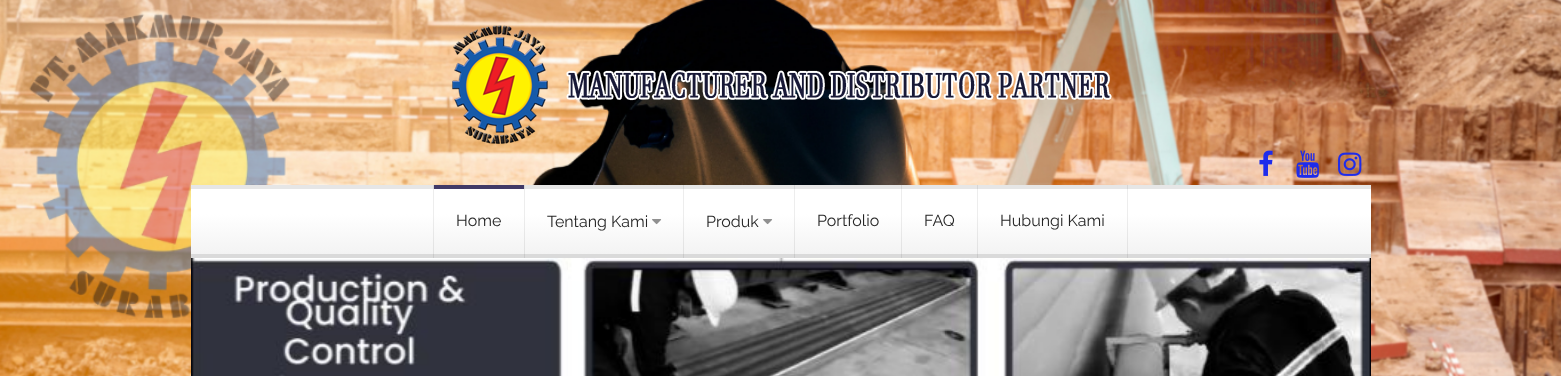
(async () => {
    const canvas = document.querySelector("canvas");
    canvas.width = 1561;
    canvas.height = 376;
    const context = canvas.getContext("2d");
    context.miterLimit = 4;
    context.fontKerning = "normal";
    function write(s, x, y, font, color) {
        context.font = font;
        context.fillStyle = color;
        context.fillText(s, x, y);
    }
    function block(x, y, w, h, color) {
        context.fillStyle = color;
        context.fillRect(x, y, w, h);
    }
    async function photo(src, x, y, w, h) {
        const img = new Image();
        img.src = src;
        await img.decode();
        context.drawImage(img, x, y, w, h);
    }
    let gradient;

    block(0, 0, 1561, 376, "rgb(255, 255, 255)");
    await photo("media/1.png", 0, 0, 1561, 376);
    await photo("media/2.png", 452, 25, 660, 119);
    await photo("media/3.png", 1259, 150, 14, 26);
    await photo("media/4.png", 1296, 150, 23, 28);
    await photo("media/5.png", 1338, 152, 24, 24);
    gradient = context.createLinearGradient(781, 258, 781, 185);
    gradient.addColorStop(0, "rgb(242, 242, 242)");
    gradient.addColorStop(0.6, "rgb(255, 255, 255)");
    context.fillStyle = gradient;
    context.fillRect(191, 189, 1180, 65);
    block(191, 254, 1180, 4, "rgb(218, 218, 218)");
    block(191, 185, 1180, 4, "rgb(230, 230, 230)");
    block(524, 185, 1, 73, "rgba(0, 0, 0, 0.07)");
    block(433, 185, 1, 73, "rgba(0, 0, 0, 0.07)");
    block(434, 185, 90, 4, "rgb(64, 57, 102)");
    write("Home", 456, 226, "16px Raleway", "rgb(36, 36, 36)");
    block(683, 185, 1, 73, "rgba(0, 0, 0, 0.07)");
    write("Tentang Kami", 547, 227, "16px Raleway", "rgb(36, 36, 36)");
    await photo("media/6.png", 652, 219, 10, 6);
    block(794, 185, 1, 73, "rgba(0, 0, 0, 0.07)");
    write("Produk", 706, 227, "16px Raleway", "rgb(36, 36, 36)");
    await photo("media/6.png", 763, 219, 10, 6);
    block(901, 185, 1, 73, "rgba(0, 0, 0, 0.07)");
    write("Portfolio", 817, 226, "16px Raleway", "rgb(36, 36, 36)");
    block(977, 185, 1, 73, "rgba(0, 0, 0, 0.07)");
    write("FAQ", 924, 226, "16px Raleway", "rgb(36, 36, 36)");
    block(1127, 185, 1, 73, "rgba(0, 0, 0, 0.07)");
    write("Hubungi Kami", 1000, 226, "16px Raleway", "rgb(36, 36, 36)");
    block(191, 258, 1180, 118, "rgb(0, 0, 0)");
    await photo("media/7.png", 191, 258, 1180, 118);
})();
